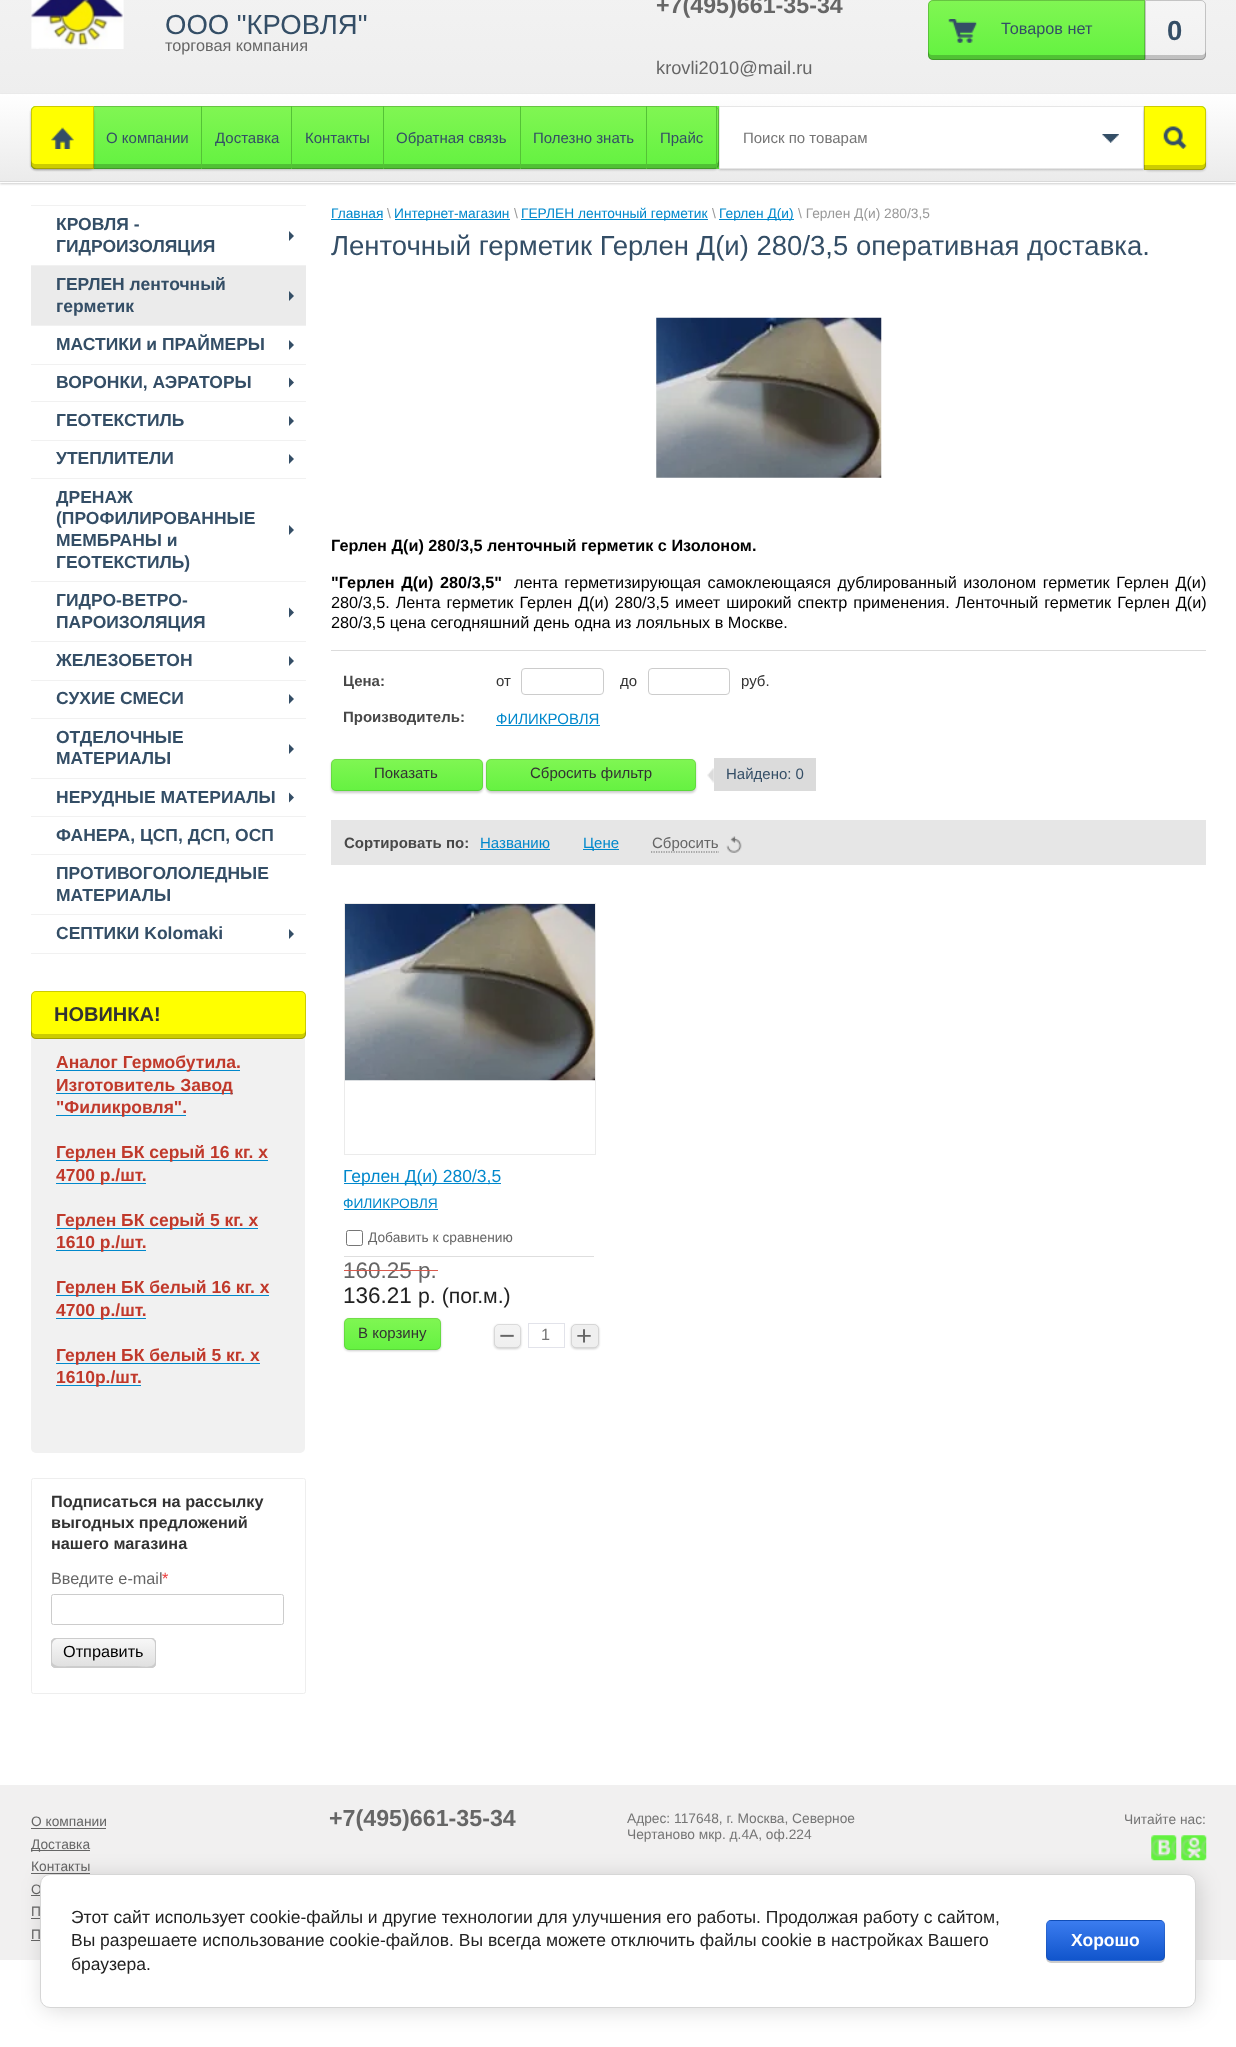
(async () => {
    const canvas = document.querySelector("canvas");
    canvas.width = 1236;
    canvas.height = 2047;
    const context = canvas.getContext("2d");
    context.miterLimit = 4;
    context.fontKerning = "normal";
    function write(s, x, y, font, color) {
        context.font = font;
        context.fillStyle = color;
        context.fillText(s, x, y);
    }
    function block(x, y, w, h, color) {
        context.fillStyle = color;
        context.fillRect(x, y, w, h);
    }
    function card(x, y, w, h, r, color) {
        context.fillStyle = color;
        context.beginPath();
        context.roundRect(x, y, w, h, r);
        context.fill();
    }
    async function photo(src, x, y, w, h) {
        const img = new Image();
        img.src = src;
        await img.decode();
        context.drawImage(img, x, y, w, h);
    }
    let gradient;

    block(0, 0, 1236, 2047, "rgb(255, 255, 255)");
    gradient = context.createLinearGradient(618, -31, 618, 94);
    gradient.addColorStop(0, "rgb(243, 243, 243)");
    gradient.addColorStop(1, "rgb(238, 238, 238)");
    context.fillStyle = gradient;
    context.fillRect(0, 0, 1236, 94);
    await photo("media/1.png", 31, 0, 93, 49);
    write("ООО \"КРОВЛЯ\"", 165, 34, "27.5px Liberation Sans", "rgb(52, 78, 102)");
    write("торговая компания", 165, 51, "16.25px Liberation Sans", "rgb(102, 102, 102)");
    write("+7(495)661-35-34", 656, 13, "bold 23.25px Liberation Sans", "rgb(102, 102, 102)");
    write("krovli2010@mail.ru", 656, 74, "18.25px Liberation Sans", "rgb(102, 102, 102)");
    gradient = context.createLinearGradient(1036, 0, 1036, 60);
    gradient.addColorStop(0, "rgb(129, 246, 83)");
    gradient.addColorStop(1, "rgb(99, 242, 64)");
    context.fillStyle = gradient;
    context.beginPath();
    context.roundRect(928, 0, 217, 60, [5, 0, 0, 5]);
    context.fill();
    context.beginPath();
    context.roundRect(928.5, 0.5, 216, 59, [4.5, 0, 0, 4.5]);
    context.strokeStyle = "rgba(0, 0, 0, 0.2)";
    context.stroke();
    context.fillStyle = "rgba(0, 0, 0, 0.2)";
    context.beginPath();
    context.moveTo(928, 50);
    context.lineTo(928, 55);
    context.bezierCurveTo(928, 58, 930, 60, 933, 60);
    context.lineTo(1145, 60);
    context.lineTo(1145, 55);
    context.lineTo(932, 55);
    context.bezierCurveTo(930, 55, 928, 53, 928, 50);
    context.closePath();
    context.fill();
    await photo("media/2.png", 948, 19, 29, 24);
    write("Товаров нет", 1001, 34, "16.25px Liberation Sans", "rgb(52, 78, 102)");
    gradient = context.createLinearGradient(1176, 0, 1176, 60);
    gradient.addColorStop(0, "rgb(245, 245, 245)");
    gradient.addColorStop(1, "rgb(241, 241, 241)");
    context.fillStyle = gradient;
    context.beginPath();
    context.roundRect(1145, 0, 61, 60, [0, 5, 5, 0]);
    context.fill();
    context.beginPath();
    context.roundRect(1145.5, 0.5, 60, 59, [0, 4.5, 4.5, 0]);
    context.stroke();
    context.fillStyle = "rgba(0, 0, 0, 0.2)";
    context.beginPath();
    context.moveTo(1145, 55);
    context.lineTo(1145, 60);
    context.lineTo(1201, 60);
    context.bezierCurveTo(1204, 60, 1206, 58, 1206, 55);
    context.lineTo(1206, 50);
    context.bezierCurveTo(1206, 53, 1204, 55, 1201, 55);
    context.closePath();
    context.fill();
    write("0", 1167, 40, "bold 27.5px Liberation Sans", "rgb(52, 78, 102)");
    context.fillStyle = "rgba(0, 0, 0, 0.2)";
    context.filter = "blur(1px)";
    context.beginPath();
    context.rect(0, 95, 1236, 89);
    context.fill();
    context.filter = "none";
    gradient = context.createLinearGradient(618, 94, 618, 181);
    gradient.addColorStop(0, "rgb(255, 255, 255)");
    gradient.addColorStop(1, "rgb(235, 235, 235)");
    context.fillStyle = gradient;
    context.fillRect(0, 94, 1236, 87);
    gradient = context.createLinearGradient(618, 181, 618, 269);
    gradient.addColorStop(0, "rgb(255, 255, 255)");
    gradient.addColorStop(1, "rgb(235, 235, 235)");
    context.fillStyle = gradient;
    context.fillRect(0, 182, 1236, 1);
    block(0, 181, 1236, 1, "rgb(217, 217, 217)");
    card(31, 106, 1175, 63, 5, "rgb(99, 242, 64)");
    context.fillStyle = "rgba(0, 0, 0, 0.2)";
    context.filter = "blur(1px)";
    context.beginPath();
    context.roundRect(31, 108, 688, 62, 5);
    context.fill();
    context.filter = "none";
    gradient = context.createLinearGradient(375, 106, 375, 169);
    gradient.addColorStop(0, "rgb(129, 246, 83)");
    gradient.addColorStop(1, "rgb(99, 242, 64)");
    context.fillStyle = gradient;
    context.beginPath();
    context.roundRect(31, 106, 688, 63, 5);
    context.fill();
    context.beginPath();
    context.roundRect(31.5, 106.5, 687, 62, 4.5);
    context.stroke();
    context.fillStyle = "rgba(0, 0, 0, 0.2)";
    context.beginPath();
    context.moveTo(31, 159);
    context.lineTo(31, 164);
    context.bezierCurveTo(31, 167, 33, 169, 36, 169);
    context.lineTo(714, 169);
    context.bezierCurveTo(717, 169, 719, 167, 719, 164);
    context.lineTo(719, 159);
    context.bezierCurveTo(719, 162, 717, 164, 714, 164);
    context.lineTo(36, 164);
    context.bezierCurveTo(33, 164, 31, 162, 31, 159);
    context.closePath();
    context.fill();
    context.filter = "blur(1px)";
    context.beginPath();
    context.roundRect(31, 108, 63, 62, 5);
    context.fill();
    context.filter = "none";
    context.fillStyle = "rgb(255, 255, 0)";
    context.beginPath();
    context.roundRect(31, 106, 63, 63, [5, 0, 0, 5]);
    context.fill();
    context.beginPath();
    context.roundRect(31.5, 106.5, 62, 62, [4.5, 0, 0, 4.5]);
    context.stroke();
    context.fillStyle = "rgba(0, 0, 0, 0.2)";
    context.beginPath();
    context.moveTo(31, 159);
    context.lineTo(31, 164);
    context.bezierCurveTo(31, 167, 33, 169, 36, 169);
    context.lineTo(94, 169);
    context.lineTo(94, 164);
    context.lineTo(36, 164);
    context.bezierCurveTo(33, 164, 31, 162, 31, 159);
    context.closePath();
    context.fill();
    await photo("media/3.png", 51, 127, 23, 22);
    block(201, 106, 1, 63, "rgb(84, 194, 54)");
    write("О компании", 106, 143, "15px Liberation Sans", "rgb(52, 78, 102)");
    block(291, 106, 1, 63, "rgb(84, 194, 54)");
    write("Доставка", 215, 143, "15px Liberation Sans", "rgb(52, 78, 102)");
    block(383, 106, 1, 63, "rgb(84, 194, 54)");
    write("Контакты", 305, 143, "15px Liberation Sans", "rgb(52, 78, 102)");
    block(520, 106, 1, 63, "rgb(84, 194, 54)");
    write("Обратная связь", 396, 143, "15px Liberation Sans", "rgb(52, 78, 102)");
    block(646, 106, 1, 63, "rgb(84, 194, 54)");
    write("Полезно знать", 533, 143, "15px Liberation Sans", "rgb(52, 78, 102)");
    block(716, 106, 1, 63, "rgb(84, 194, 54)");
    write("Прайс", 660, 143, "15px Liberation Sans", "rgb(52, 78, 102)");
    context.fillStyle = "rgba(0, 0, 0, 0.2)";
    context.filter = "blur(1px)";
    context.beginPath();
    context.rect(719, 108, 425, 62);
    context.fill();
    context.filter = "none";
    context.fillStyle = "rgb(255, 255, 255)";
    context.beginPath();
    context.rect(719.5, 106.5, 424, 62);
    context.fill();
    context.strokeStyle = "rgb(230, 230, 230)";
    context.stroke();
    write("Поиск по товарам", 743, 143, "15px Liberation Sans", "rgb(117, 117, 117)");
    await photo("media/4.png", 1102, 134, 17, 9);
    context.fillStyle = "rgba(0, 0, 0, 0.2)";
    context.filter = "blur(1px)";
    context.beginPath();
    context.roundRect(1144, 108, 62, 63, 5);
    context.fill();
    context.filter = "none";
    context.fillStyle = "rgb(255, 255, 0)";
    context.beginPath();
    context.roundRect(1144, 106, 62, 64, [0, 5, 5, 0]);
    context.fill();
    context.beginPath();
    context.roundRect(1144.5, 106.5, 61, 63, [0, 4.5, 4.5, 0]);
    context.strokeStyle = "rgba(0, 0, 0, 0.2)";
    context.stroke();
    context.fillStyle = "rgba(0, 0, 0, 0.2)";
    context.beginPath();
    context.moveTo(1144, 165);
    context.lineTo(1144, 170);
    context.lineTo(1201, 170);
    context.bezierCurveTo(1204, 170, 1206, 168, 1206, 165);
    context.lineTo(1206, 160);
    context.bezierCurveTo(1206, 163, 1204, 165, 1201, 165);
    context.closePath();
    context.fill();
    await photo("media/5.png", 1163, 126, 24, 23);
    block(31, 205, 275, 1, "rgb(241, 241, 241)");
    block(31, 265, 275, 1, "rgb(241, 241, 241)");
    write("КРОВЛЯ -", 56, 230, "bold 17.5px Liberation Sans", "rgb(52, 78, 102)");
    context.beginPath();
    context.moveTo(289, 241);
    context.lineTo(289, 231);
    context.lineTo(294, 236);
    context.closePath();
    context.fill();
    write("ГИДРОИЗОЛЯЦИЯ", 56, 252, "bold 17.5px Liberation Sans", "rgb(52, 78, 102)");
    block(31, 266, 275, 59, "rgb(235, 235, 235)");
    block(31, 325, 275, 1, "rgb(241, 241, 241)");
    write("ГЕРЛЕН ленточный", 56, 290, "bold 17.5px Liberation Sans", "rgb(52, 78, 102)");
    context.beginPath();
    context.moveTo(289, 301);
    context.lineTo(289, 291);
    context.lineTo(294, 296);
    context.closePath();
    context.fill();
    write("герметик", 56, 312, "bold 17.5px Liberation Sans", "rgb(52, 78, 102)");
    block(31, 364, 275, 1, "rgb(241, 241, 241)");
    write("МАСТИКИ и ПРАЙМЕРЫ", 56, 350, "bold 17.5px Liberation Sans", "rgb(52, 78, 102)");
    context.beginPath();
    context.moveTo(289, 350);
    context.lineTo(289, 340);
    context.lineTo(294, 345);
    context.closePath();
    context.fill();
    block(31, 401, 275, 1, "rgb(241, 241, 241)");
    write("ВОРОНКИ, АЭРАТОРЫ", 56, 388, "bold 17.5px Liberation Sans", "rgb(52, 78, 102)");
    context.beginPath();
    context.moveTo(289, 387.5);
    context.lineTo(289, 377.5);
    context.lineTo(294, 382.5);
    context.closePath();
    context.fill();
    block(31, 440, 275, 1, "rgb(241, 241, 241)");
    write("ГЕОТЕКСТИЛЬ", 56, 426, "bold 17.5px Liberation Sans", "rgb(52, 78, 102)");
    context.beginPath();
    context.moveTo(289, 426);
    context.lineTo(289, 416);
    context.lineTo(294, 421);
    context.closePath();
    context.fill();
    block(31, 478, 275, 1, "rgb(241, 241, 241)");
    write("УТЕПЛИТЕЛИ", 56, 464, "bold 17.5px Liberation Sans", "rgb(52, 78, 102)");
    context.beginPath();
    context.moveTo(289, 464);
    context.lineTo(289, 454);
    context.lineTo(294, 459);
    context.closePath();
    context.fill();
    block(31, 581, 275, 1, "rgb(241, 241, 241)");
    write("ДРЕНАЖ", 56, 503, "bold 17.5px Liberation Sans", "rgb(52, 78, 102)");
    write("(ПРОФИЛИРОВАННЫЕ", 56, 524, "bold 17.5px Liberation Sans", "rgb(52, 78, 102)");
    context.beginPath();
    context.moveTo(289, 535);
    context.lineTo(289, 525);
    context.lineTo(294, 530);
    context.closePath();
    context.fill();
    write("МЕМБРАНЫ и", 56, 546, "bold 17.5px Liberation Sans", "rgb(52, 78, 102)");
    write("ГЕОТЕКСТИЛЬ)", 56, 568, "bold 17.5px Liberation Sans", "rgb(52, 78, 102)");
    block(31, 641, 275, 1, "rgb(241, 241, 241)");
    write("ГИДРО-ВЕТРО-", 56, 606, "bold 17.5px Liberation Sans", "rgb(52, 78, 102)");
    context.beginPath();
    context.moveTo(289, 617.5);
    context.lineTo(289, 607.5);
    context.lineTo(294, 612.5);
    context.closePath();
    context.fill();
    write("ПАРОИЗОЛЯЦИЯ", 56, 628, "bold 17.5px Liberation Sans", "rgb(52, 78, 102)");
    block(31, 680, 275, 1, "rgb(241, 241, 241)");
    write("ЖЕЛЕЗОБЕТОН", 56, 666, "bold 17.5px Liberation Sans", "rgb(52, 78, 102)");
    context.beginPath();
    context.moveTo(289, 666);
    context.lineTo(289, 656);
    context.lineTo(294, 661);
    context.closePath();
    context.fill();
    block(31, 718, 275, 1, "rgb(241, 241, 241)");
    write("СУХИЕ СМЕСИ", 56, 704, "bold 17.5px Liberation Sans", "rgb(52, 78, 102)");
    context.beginPath();
    context.moveTo(289, 704);
    context.lineTo(289, 694);
    context.lineTo(294, 699);
    context.closePath();
    context.fill();
    block(31, 778, 275, 1, "rgb(241, 241, 241)");
    write("ОТДЕЛОЧНЫЕ", 56, 743, "bold 17.5px Liberation Sans", "rgb(52, 78, 102)");
    context.beginPath();
    context.moveTo(289, 754);
    context.lineTo(289, 744);
    context.lineTo(294, 749);
    context.closePath();
    context.fill();
    write("МАТЕРИАЛЫ", 56, 764, "bold 17.5px Liberation Sans", "rgb(52, 78, 102)");
    block(31, 816, 275, 1, "rgb(241, 241, 241)");
    write("НЕРУДНЫЕ МАТЕРИАЛЫ", 56, 803, "bold 17.5px Liberation Sans", "rgb(52, 78, 102)");
    context.beginPath();
    context.moveTo(289, 802.5);
    context.lineTo(289, 792.5);
    context.lineTo(294, 797.5);
    context.closePath();
    context.fill();
    block(31, 854, 275, 1, "rgb(241, 241, 241)");
    write("ФАНЕРА, ЦСП, ДСП, ОСП", 56, 841, "bold 17.5px Liberation Sans", "rgb(52, 78, 102)");
    block(31, 914, 275, 1, "rgb(241, 241, 241)");
    write("ПРОТИВОГОЛОЛЕДНЫЕ", 56, 879, "bold 17.5px Liberation Sans", "rgb(52, 78, 102)");
    write("МАТЕРИАЛЫ", 56, 901, "bold 17.5px Liberation Sans", "rgb(52, 78, 102)");
    block(31, 953, 275, 1, "rgb(241, 241, 241)");
    write("СЕПТИКИ Kolomaki", 56, 939, "bold 17.5px Liberation Sans", "rgb(52, 78, 102)");
    context.beginPath();
    context.moveTo(289, 939);
    context.lineTo(289, 929);
    context.lineTo(294, 934);
    context.closePath();
    context.fill();
    context.fillStyle = "rgb(241, 241, 241)";
    context.beginPath();
    context.roundRect(31, 1033, 274, 420, [0, 0, 5, 5]);
    context.fill();
    card(31, 991, 275, 48, 5, "rgb(255, 255, 0)");
    context.beginPath();
    context.roundRect(31.5, 991.5, 274, 47, 4.5);
    context.stroke();
    context.fillStyle = "rgba(0, 0, 0, 0.2)";
    context.beginPath();
    context.moveTo(31, 1029);
    context.lineTo(31, 1034);
    context.bezierCurveTo(31, 1037, 33, 1039, 36, 1039);
    context.lineTo(301, 1039);
    context.bezierCurveTo(304, 1039, 306, 1037, 306, 1034);
    context.lineTo(306, 1029);
    context.bezierCurveTo(306, 1032, 304, 1034, 301, 1034);
    context.lineTo(36, 1034);
    context.bezierCurveTo(33, 1034, 31, 1032, 31, 1029);
    context.closePath();
    context.fill();
    write("НОВИНКА!", 54, 1021, "bold 20px Liberation Sans", "rgb(51, 51, 51)");
    block(56, 1070, 184, 1, "rgb(0, 136, 204)");
    write("Аналог Гермобутила.", 56, 1068, "bold 17.5px Liberation Sans", "rgb(192, 57, 43)");
    block(56, 1093, 177, 1, "rgb(0, 136, 204)");
    write("Изготовитель Завод", 56, 1091, "bold 17.5px Liberation Sans", "rgb(192, 57, 43)");
    block(56, 1115, 130, 1, "rgb(0, 136, 204)");
    write("\"Филикровля\".", 56, 1113, "bold 17.5px Liberation Sans", "rgb(192, 57, 43)");
    block(56, 1160, 212, 1, "rgb(0, 136, 204)");
    write("Герлен БК серый 16 кг. х", 56, 1158, "bold 17.5px Liberation Sans", "rgb(192, 57, 43)");
    block(56, 1183, 90, 1, "rgb(0, 136, 204)");
    write("4700 р./шт.", 56, 1181, "bold 17.5px Liberation Sans", "rgb(192, 57, 43)");
    block(56, 1228, 202, 1, "rgb(0, 136, 204)");
    write("Герлен БК серый 5 кг. х", 56, 1226, "bold 17.5px Liberation Sans", "rgb(192, 57, 43)");
    block(56, 1250, 90, 1, "rgb(0, 136, 204)");
    write("1610 р./шт.", 56, 1248, "bold 17.5px Liberation Sans", "rgb(192, 57, 43)");
    block(56, 1295, 213, 1, "rgb(0, 136, 204)");
    write("Герлен БК белый 16 кг. х", 56, 1293, "bold 17.5px Liberation Sans", "rgb(192, 57, 43)");
    block(56, 1318, 90, 1, "rgb(0, 136, 204)");
    write("4700 р./шт.", 56, 1316, "bold 17.5px Liberation Sans", "rgb(192, 57, 43)");
    block(56, 1363, 204, 1, "rgb(0, 136, 204)");
    write("Герлен БК белый 5 кг. х", 56, 1361, "bold 17.5px Liberation Sans", "rgb(192, 57, 43)");
    block(56, 1385, 85, 1, "rgb(0, 136, 204)");
    write("1610р./шт.", 56, 1383, "bold 17.5px Liberation Sans", "rgb(192, 57, 43)");
    context.beginPath();
    context.roundRect(31.5, 1478.5, 274, 215, 2);
    context.strokeStyle = "rgb(238, 238, 238)";
    context.stroke();
    write("Подписаться на рассылку", 51, 1507, "bold 16.25px Liberation Sans", "rgb(51, 51, 51)");
    write("выгодных предложений", 51, 1528, "bold 16.25px Liberation Sans", "rgb(51, 51, 51)");
    write("нашего магазина", 51, 1549, "bold 16.25px Liberation Sans", "rgb(51, 51, 51)");
    write("Введите e-mail", 51, 1584, "16.25px Liberation Sans", "rgb(102, 102, 102)");
    write("*", 162, 1584, "16.25px Liberation Sans", "rgb(235, 60, 60)");
    context.beginPath();
    context.roundRect(51.5, 1594.5, 232, 30, 2);
    context.strokeStyle = "rgb(204, 204, 204)";
    context.stroke();
    gradient = context.createLinearGradient(104, 1638, 104, 1668);
    gradient.addColorStop(0, "rgb(248, 248, 248)");
    gradient.addColorStop(1, "rgb(223, 223, 223)");
    context.fillStyle = gradient;
    context.beginPath();
    context.roundRect(51, 1638, 105, 30, 5);
    context.fill();
    context.fillStyle = "rgb(204, 204, 204)";
    context.beginPath();
    context.moveTo(52, 1640);
    context.bezierCurveTo(51, 1641, 51, 1642, 51, 1643);
    context.lineTo(51, 1663);
    context.bezierCurveTo(51, 1666, 53, 1668, 56, 1668);
    context.lineTo(151, 1668);
    context.bezierCurveTo(153, 1668, 155, 1667, 156, 1665);
    context.bezierCurveTo(151, 1668, 137, 1666, 136, 1666);
    context.lineTo(74, 1666);
    context.bezierCurveTo(73, 1666, 54, 1669, 52, 1662);
    context.closePath();
    context.fill();
    context.beginPath();
    context.moveTo(55, 1639);
    context.lineTo(150, 1639);
    context.bezierCurveTo(153, 1639, 155, 1641, 155, 1644);
    context.lineTo(155, 1664);
    context.lineTo(154, 1667);
    context.bezierCurveTo(155, 1666, 156, 1664, 156, 1663);
    context.lineTo(156, 1643);
    context.bezierCurveTo(156, 1640, 154, 1638, 151, 1638);
    context.lineTo(56, 1638);
    context.bezierCurveTo(55, 1638, 53, 1639, 52, 1640);
    context.closePath();
    context.fill();
    context.beginPath();
    context.moveTo(51, 1664);
    context.bezierCurveTo(52, 1667, 54, 1668, 56, 1668);
    context.lineTo(151, 1668);
    context.bezierCurveTo(154, 1668, 156, 1666, 156, 1663);
    context.lineTo(156, 1643);
    context.bezierCurveTo(156, 1642, 156, 1641, 155, 1640);
    context.lineTo(155, 1662);
    context.bezierCurveTo(154, 1670, 135, 1666, 134, 1666);
    context.lineTo(71, 1666);
    context.bezierCurveTo(70, 1666, 55, 1668, 51, 1664);
    context.closePath();
    context.fill();
    context.beginPath();
    context.moveTo(58, 1639);
    context.lineTo(152, 1639);
    context.lineTo(155, 1639);
    context.bezierCurveTo(154, 1639, 152, 1638, 151, 1638);
    context.lineTo(56, 1638);
    context.bezierCurveTo(53, 1638, 51, 1640, 51, 1643);
    context.lineTo(51, 1663);
    context.bezierCurveTo(51, 1665, 52, 1667, 54, 1667);
    context.bezierCurveTo(51, 1665, 52, 1657, 52, 1654);
    context.bezierCurveTo(52, 1649, 50, 1639, 58, 1639);
    context.closePath();
    context.fill();
    write("Отправить", 63, 1657, "16.25px Liberation Sans", "rgb(0, 0, 0)");
    write("Главная", 331, 218, "13.75px Liberation Sans", "rgb(0, 136, 204)");
    block(331, 219, 52, 1, "rgb(0, 136, 204)");
    write("\\", 387, 218, "13.75px Liberation Sans", "rgb(153, 153, 153)");
    block(395, 219, 115, 1, "rgb(0, 136, 204)");
    write("Интернет-магазин", 394, 218, "13.75px Liberation Sans", "rgb(0, 136, 204)");
    write("\\", 514, 218, "13.75px Liberation Sans", "rgb(153, 153, 153)");
    block(521, 219, 187, 1, "rgb(0, 136, 204)");
    write("ГЕРЛЕН ленточный герметик", 521, 218, "13.75px Liberation Sans", "rgb(0, 136, 204)");
    write("\\", 712, 218, "13.75px Liberation Sans", "rgb(153, 153, 153)");
    block(719, 219, 75, 1, "rgb(0, 136, 204)");
    write("Герлен Д(и)", 719, 218, "13.75px Liberation Sans", "rgb(0, 136, 204)");
    write("\\ Герлен Д(и) 280/3,5", 798, 218, "13.75px Liberation Sans", "rgb(153, 153, 153)");
    write("Ленточный герметик Герлен Д(и) 280/3,5 оперативная доставка.", 331, 255, "27.5px Liberation Sans", "rgb(52, 78, 102)");
    await photo("media/6.png", 656, 317, 226, 161);
    write("Герлен Д(и) 280/3,5 ленточный герметик с Изолоном.", 331, 551, "bold 16.25px Liberation Sans", "rgb(0, 0, 0)");
    context.wordSpacing = "2px";
    write("\"Герлен Д(и) 280/3,5\"", 331, 588, "bold 16.25px Liberation Sans", "rgb(0, 0, 0)");
    write("лента герметизирующая самоклеющаяся дублированный изолоном герметик Герлен Д(и)", 514, 588, "16.25px Liberation Sans", "rgb(0, 0, 0)");
    context.wordSpacing = "1.4px";
    write("280/3,5. Лента герметик Герлен Д(и) 280/3,5 имеет широкий спектр применения. Ленточный герметик Герлен Д(и)", 331, 608, "16.25px Liberation Sans", "rgb(0, 0, 0)");
    context.wordSpacing = "0px";
    write("280/3,5 цена сегодняшний день одна из лояльных в Москве.", 331, 628, "16.25px Liberation Sans", "rgb(0, 0, 0)");
    block(331, 650, 875, 1, "rgb(219, 219, 219)");
    write("Цена:", 343, 686, "bold 15px Liberation Sans", "rgb(72, 72, 72)");
    write("от", 496, 686, "15px Liberation Sans", "rgb(51, 51, 51)");
    context.beginPath();
    context.roundRect(521.5, 668.5, 82, 26, 3.5);
    context.stroke();
    write("до", 620, 686, "15px Liberation Sans", "rgb(51, 51, 51)");
    context.beginPath();
    context.roundRect(648.5, 668.5, 81, 26, 3.5);
    context.stroke();
    write("руб.", 741, 686, "15px Liberation Sans", "rgb(51, 51, 51)");
    write("Производитель:", 343, 722, "bold 15px Liberation Sans", "rgb(72, 72, 72)");
    write("ФИЛИКРОВЛЯ", 496, 724, "15px Liberation Sans", "rgb(0, 136, 204)");
    block(496, 725, 104, 1, "rgb(0, 136, 204)");
    context.fillStyle = "rgba(0, 0, 0, 0.2)";
    context.filter = "blur(1px)";
    context.beginPath();
    context.roundRect(331, 760, 152, 33, 5);
    context.fill();
    context.filter = "none";
    gradient = context.createLinearGradient(407, 759, 407, 791);
    gradient.addColorStop(0, "rgb(128, 246, 83)");
    gradient.addColorStop(1, "rgb(101, 242, 65)");
    context.fillStyle = gradient;
    context.beginPath();
    context.roundRect(331, 759, 152, 32, 5);
    context.fill();
    context.beginPath();
    context.roundRect(331.5, 759.5, 151, 31, 4.5);
    context.strokeStyle = "rgba(0, 0, 0, 0.1)";
    context.stroke();
    write("Показать", 374, 778, "15px Liberation Sans", "rgb(51, 51, 51)");
    context.fillStyle = "rgba(0, 0, 0, 0.2)";
    context.filter = "blur(1px)";
    context.beginPath();
    context.roundRect(486, 760, 210, 33, 5);
    context.fill();
    context.filter = "none";
    gradient = context.createLinearGradient(591, 759, 591, 791);
    gradient.addColorStop(0, "rgb(128, 246, 83)");
    gradient.addColorStop(1, "rgb(101, 242, 65)");
    context.fillStyle = gradient;
    context.beginPath();
    context.roundRect(486, 759, 210, 32, 5);
    context.fill();
    context.beginPath();
    context.roundRect(486.5, 759.5, 209, 31, 4.5);
    context.stroke();
    write("Сбросить фильтр", 530, 778, "15px Liberation Sans", "rgb(51, 51, 51)");
    block(714, 758, 102, 33, "rgb(219, 219, 219)");
    await photo("media/7.png", 707, 768, 7, 15);
    write("Найдено: 0", 726, 779, "15px Liberation Sans", "rgb(52, 78, 102)");
    block(331, 820, 875, 45, "rgb(230, 230, 230)");
    write("Сортировать по:", 344, 848, "bold 15px Liberation Sans", "rgb(72, 72, 72)");
    write("Названию", 480, 848, "15px Liberation Sans", "rgb(0, 136, 204)");
    block(480, 849, 70, 1, "rgb(0, 136, 204)");
    block(583, 849, 36, 1, "rgb(0, 136, 204)");
    write("Цене", 583, 848, "15px Liberation Sans", "rgb(0, 136, 204)");
    context.beginPath();
    context.moveTo(651, 852);
    context.lineTo(719, 852);
    context.strokeStyle = "rgb(102, 102, 102)";
    context.lineWidth = 1.2;
    context.setLineDash([1.25, 1.25]);
    context.stroke();
    write("Сбросить", 652, 848, "15px Liberation Sans", "rgb(102, 102, 102)");
    await photo("media/8.png", 726, 836, 16, 17);
    context.strokeStyle = "rgb(235, 235, 235)";
    context.lineWidth = 1;
    context.setLineDash([]);
    context.strokeRect(344.5, 903.5, 251, 251);
    await photo("media/9.png", 345, 904, 250, 177);
    block(344, 1183, 157, 1, "rgb(0, 136, 204)");
    write("Герлен Д(и) 280/3,5", 343, 1182, "17.5px Liberation Sans", "rgb(0, 136, 204)");
    write("ФИЛИКРОВЛЯ", 343, 1208, "13.75px Liberation Sans", "rgb(0, 136, 204)");
    block(344, 1209, 94, 1, "rgb(0, 136, 204)");
    block(344, 1256, 250, 1, "rgb(222, 222, 222)");
    context.beginPath();
    context.roundRect(346.5, 1230.5, 16, 15, 2);
    context.strokeStyle = "rgb(118, 118, 118)";
    context.stroke();
    write("Добавить к сравнению", 368, 1242, "13.75px Liberation Sans", "rgb(102, 102, 102)");
    write("160.25 р.", 343, 1278, "22.5px Liberation Sans", "rgb(102, 102, 102)");
    block(344, 1270, 94, 1, "rgb(216, 90, 77)");
    write("136.21", 343, 1303, "22.5px Liberation Sans", "rgb(34, 34, 34)");
    write("р. (пог.м.)", 418, 1303, "21.25px Liberation Sans", "rgb(34, 34, 34)");
    context.fillStyle = "rgba(0, 0, 0, 0.2)";
    context.filter = "blur(1px)";
    context.beginPath();
    context.roundRect(344, 1319, 97, 32, 5);
    context.fill();
    context.filter = "none";
    gradient = context.createLinearGradient(393, 1318, 393, 1350);
    gradient.addColorStop(0, "rgb(128, 246, 83)");
    gradient.addColorStop(1, "rgb(101, 242, 65)");
    context.fillStyle = gradient;
    context.beginPath();
    context.roundRect(344, 1318, 97, 32, 5);
    context.fill();
    context.beginPath();
    context.roundRect(344.5, 1318.5, 96, 31, 4.5);
    context.strokeStyle = "rgba(0, 0, 0, 0.1)";
    context.stroke();
    write("В корзину", 358, 1338, "15px Liberation Sans", "rgb(51, 51, 51)");
    context.fillStyle = "rgba(0, 0, 0, 0.2)";
    context.filter = "blur(1px)";
    context.beginPath();
    context.roundRect(494, 1325, 27, 24, 5);
    context.fill();
    context.filter = "none";
    card(494, 1324, 27, 24, 5, "rgb(239, 239, 239)");
    gradient = context.createLinearGradient(508, 1348, 508, 1324);
    gradient.addColorStop(0, "rgba(255, 255, 255, 0)");
    gradient.addColorStop(1, "rgba(255, 255, 255, 0.3)");
    context.fillStyle = gradient;
    context.beginPath();
    context.roundRect(494, 1324, 27, 24, 5);
    context.fill();
    context.beginPath();
    context.roundRect(494.5, 1324.5, 26, 23, 4.5);
    context.stroke();
    write("−", 499, 1345, "27.5px Liberation Sans", "rgb(102, 102, 102)");
    context.strokeStyle = "rgb(226, 227, 234)";
    context.strokeRect(528.5, 1323.5, 36, 24);
    write("1", 541, 1340, "16.25px Liberation Sans", "rgb(117, 117, 117)");
    context.fillStyle = "rgba(0, 0, 0, 0.2)";
    context.filter = "blur(1px)";
    context.beginPath();
    context.roundRect(571, 1325, 28, 24, 5);
    context.fill();
    context.filter = "none";
    card(571, 1324, 28, 24, 5, "rgb(239, 239, 239)");
    context.beginPath();
    context.roundRect(571.5, 1324.5, 27, 23, 4.5);
    context.strokeStyle = "rgba(0, 0, 0, 0.1)";
    context.stroke();
    write("+", 576, 1345, "27.5px Liberation Sans", "rgb(102, 102, 102)");
    block(0, 1785, 1236, 175, "rgb(241, 240, 240)");
    write("О компании", 31, 1826, "13.75px Liberation Sans", "rgb(102, 102, 102)");
    block(31, 1828, 75, 1, "rgb(102, 102, 102)");
    block(31, 1850, 59, 1, "rgb(102, 102, 102)");
    write("Доставка", 31, 1849, "13.75px Liberation Sans", "rgb(102, 102, 102)");
    write("Контакты", 31, 1871, "13.75px Liberation Sans", "rgb(102, 102, 102)");
    block(31, 1873, 59, 1, "rgb(102, 102, 102)");
    write("О", 31, 1894, "13.75px Liberation Sans", "rgb(102, 102, 102)");
    block(31, 1895, 9, 1, "rgb(102, 102, 102)");
    write("П", 31, 1916, "13.75px Liberation Sans", "rgb(102, 102, 102)");
    block(31, 1918, 9, 1, "rgb(102, 102, 102)");
    write("П", 31, 1939, "13.75px Liberation Sans", "rgb(102, 102, 102)");
    block(31, 1940, 9, 1, "rgb(102, 102, 102)");
    write("+7(495)661-35-34", 329, 1826, "bold 23.25px Liberation Sans", "rgb(102, 102, 102)");
    write("Адрес: 117648, г. Москва, Северное", 627, 1823, "13.75px Liberation Sans", "rgb(117, 117, 117)");
    write("Чертаново мкр. д.4А, оф.224", 627, 1839, "13.75px Liberation Sans", "rgb(117, 117, 117)");
    write("Читайте нас:", 1124, 1824, "13.75px Liberation Sans", "rgb(117, 117, 117)");
    await photo("media/10.png", 1151, 1835, 26, 26);
    await photo("media/11.png", 1181, 1835, 26, 26);
    context.fillStyle = "rgba(0, 0, 0, 0.14)";
    context.filter = "blur(11px)";
    context.beginPath();
    context.roundRect(43, 1876, 1156, 134, 10);
    context.fill();
    context.filter = "none";
    context.fillStyle = "rgb(255, 255, 255)";
    context.beginPath();
    context.roundRect(40.5, 1874.5, 1155, 133, 9.5);
    context.fill();
    context.strokeStyle = "rgb(214, 214, 214)";
    context.stroke();
    write("Этот сайт использует cookie-файлы и другие технологии для улучшения его работы. Продолжая работу с сайтом,", 71, 1923, "17.5px Liberation Sans", "rgb(34, 34, 34)");
    write("Вы разрешаете использование cookie-файлов. Вы всегда можете отключить файлы cookie в настройках Вашего", 71, 1946, "17.5px Liberation Sans", "rgb(34, 34, 34)");
    write("браузера.", 71, 1970, "17.5px Liberation Sans", "rgb(34, 34, 34)");
    context.fillStyle = "rgba(0, 0, 0, 0.2)";
    context.filter = "blur(0.5px)";
    context.beginPath();
    context.roundRect(1046, 1921, 119, 42, 5);
    context.fill();
    context.filter = "none";
    context.save();
    context.beginPath();
    context.roundRect(1046, 1920, 119, 41, 5);
    context.clip();
    gradient = context.createLinearGradient(1106, 1883, 1106, 1921);
    gradient.addColorStop(0, "rgb(59, 124, 239)");
    gradient.addColorStop(1, "rgb(17, 85, 204)");
    context.fillStyle = gradient;
    context.fillRect(1046, 1920, 119, 1);
    gradient = context.createLinearGradient(1106, 1921, 1106, 1960);
    gradient.addColorStop(0, "rgb(59, 124, 239)");
    gradient.addColorStop(1, "rgb(17, 85, 204)");
    context.fillStyle = gradient;
    context.fillRect(1046, 1921, 119, 39);
    gradient = context.createLinearGradient(1106, 1960, 1106, 1999);
    gradient.addColorStop(0, "rgb(59, 124, 239)");
    gradient.addColorStop(1, "rgb(17, 85, 204)");
    context.fillStyle = gradient;
    context.fillRect(1046, 1960, 119, 1);
    context.restore();
    context.beginPath();
    context.roundRect(1046.5, 1920.5, 118, 40, 4.5);
    context.strokeStyle = "rgba(0, 0, 0, 0.1)";
    context.stroke();
    write("Хорошо", 1071, 1946, "bold 17.5px Liberation Sans", "rgb(255, 255, 255)");
})();
